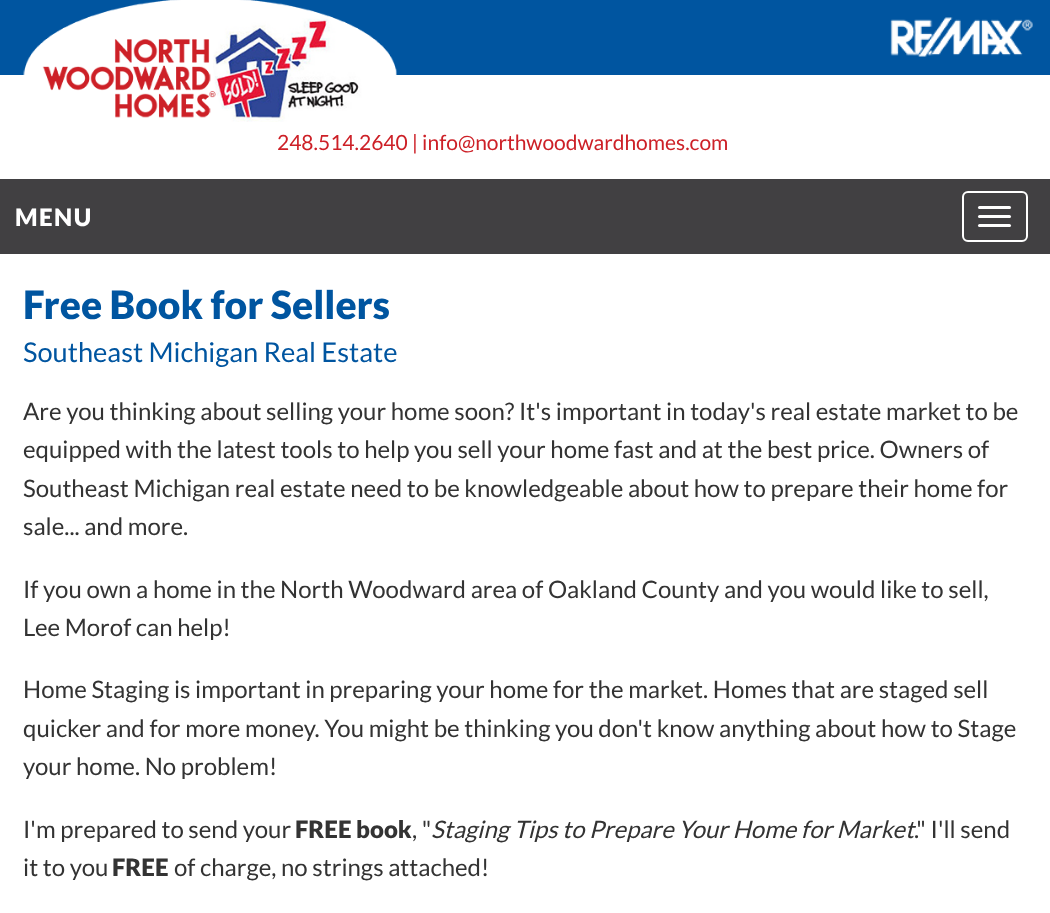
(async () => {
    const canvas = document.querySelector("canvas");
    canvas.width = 1050;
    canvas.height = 913;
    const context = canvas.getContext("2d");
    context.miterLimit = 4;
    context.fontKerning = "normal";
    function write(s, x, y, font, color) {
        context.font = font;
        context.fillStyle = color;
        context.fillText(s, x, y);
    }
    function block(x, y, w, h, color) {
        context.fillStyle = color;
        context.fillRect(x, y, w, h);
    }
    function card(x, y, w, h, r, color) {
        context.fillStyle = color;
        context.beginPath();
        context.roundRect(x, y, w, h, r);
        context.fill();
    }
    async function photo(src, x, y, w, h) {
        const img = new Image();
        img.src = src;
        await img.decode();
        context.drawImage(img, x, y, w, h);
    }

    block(0, 0, 1050, 913, "rgb(255, 255, 255)");
    block(0, 0, 1050, 75, "rgb(0, 85, 160)");
    await photo("media/1.png", 890, 17, 143, 40);
    await photo("media/2.png", 23, 0, 374, 122);
    write("248.514.2640 | info@northwoodwardhomes.com", 277, 150, "21px Lato", "rgb(205, 32, 39)");
    block(0, 179, 1050, 75, "rgb(65, 64, 66)");
    context.letterSpacing = "1.5px";
    write("MENU", 15, 226, "900 24px Lato", "rgb(255, 255, 255)");
    context.beginPath();
    context.roundRect(963, 192, 64, 49, 5);
    context.strokeStyle = "rgb(255, 255, 255)";
    context.lineWidth = 2;
    context.stroke();
    card(978, 206, 33, 3, 1.5, "rgb(255, 255, 255)");
    card(978, 215, 33, 3, 1.5, "rgb(255, 255, 255)");
    card(978, 224, 33, 3, 1.5, "rgb(255, 255, 255)");
    context.letterSpacing = "0px";
    write("Free Book for Sellers", 23, 319, "900 39px Lato", "rgb(0, 85, 160)");
    write("Southeast Michigan Real Estate", 23, 362, "27.25px Lato", "rgb(0, 85, 160)");
    write("Are you thinking about selling your home soon? It's important in today's real estate market to be", 23, 420, "24px Lato", "rgb(51, 51, 51)");
    write("equipped with the latest tools to help you sell your home fast and at the best price. Owners of", 23, 458, "24px Lato", "rgb(51, 51, 51)");
    write("Southeast Michigan real estate need to be knowledgeable about how to prepare their home for", 23, 497, "24px Lato", "rgb(51, 51, 51)");
    write("sale... and more.", 23, 535, "24px Lato", "rgb(51, 51, 51)");
    write("If you own a home in the North Woodward area of Oakland County and you would like to sell,", 23, 598, "24px Lato", "rgb(51, 51, 51)");
    write("Lee Morof can help!", 23, 636, "24px Lato", "rgb(51, 51, 51)");
    write("Home Staging is important in preparing your home for the market. Homes that are staged sell", 23, 698, "24px Lato", "rgb(51, 51, 51)");
    write("quicker and for more money. You might be thinking you don't know anything about how to Stage", 23, 737, "24px Lato", "rgb(51, 51, 51)");
    write("your home. No problem!", 23, 775, "24px Lato", "rgb(51, 51, 51)");
    write("I'm prepared to send your", 23, 838, "24px Lato", "rgb(51, 51, 51)");
    write("FREE book", 295, 838, "900 24px Lato", "rgb(51, 51, 51)");
    write(", \"", 412, 838, "24px Lato", "rgb(51, 51, 51)");
    write("Staging Tips to Prepare Your Home for Market", 431, 838, "italic 24px Lato", "rgb(51, 51, 51)");
    write(".\" I'll send", 914, 838, "24px Lato", "rgb(51, 51, 51)");
    write("it to you", 23, 876, "24px Lato", "rgb(51, 51, 51)");
    write("FREE", 112, 876, "900 24px Lato", "rgb(51, 51, 51)");
    write("of charge, no strings attached!", 174, 876, "24px Lato", "rgb(51, 51, 51)");
})();
